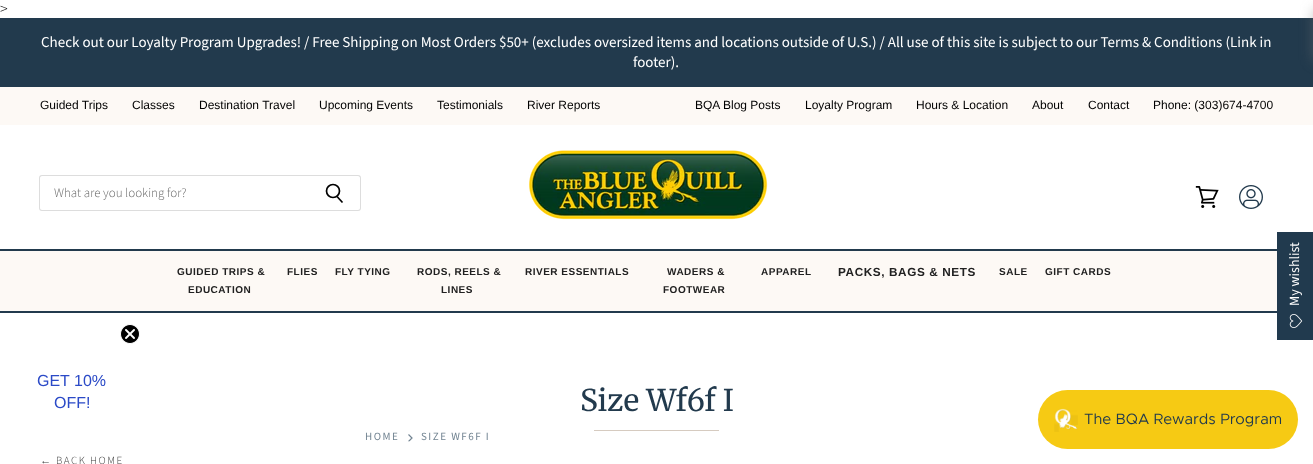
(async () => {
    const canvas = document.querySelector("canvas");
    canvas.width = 1313;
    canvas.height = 464;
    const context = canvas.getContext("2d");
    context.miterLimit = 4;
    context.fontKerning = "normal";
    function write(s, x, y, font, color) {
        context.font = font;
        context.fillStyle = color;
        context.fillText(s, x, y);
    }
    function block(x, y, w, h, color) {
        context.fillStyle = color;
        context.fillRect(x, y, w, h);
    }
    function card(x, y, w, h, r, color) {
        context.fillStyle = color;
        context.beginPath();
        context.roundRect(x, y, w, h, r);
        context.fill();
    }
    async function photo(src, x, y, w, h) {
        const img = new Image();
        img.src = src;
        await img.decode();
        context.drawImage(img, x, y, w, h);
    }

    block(0, 0, 1313, 464, "rgb(255, 255, 255)");
    write(">", 0, 14, "300 16px Source Sans Pro", "rgb(17, 17, 17)");
    block(0, 18, 1313, 69, "rgb(34, 58, 77)");
    context.fillStyle = "rgba(117, 117, 117, 0.5)";
    context.filter = "blur(7px)";
    context.beginPath();
    context.rect(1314, 10, 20, 50);
    context.fill();
    context.filter = "none";
    write("Check out our Loyalty Program Upgrades! / Free Shipping on Most Orders $50+ (excludes oversized items and locations outside of U.S.) / All use of this site is subject to our Terms & Conditions (Link in", 41, 47, "15px Source Sans Pro", "rgb(255, 255, 255)");
    write("footer).", 633, 67, "15px Source Sans Pro", "rgb(255, 255, 255)");
    block(0, 87, 1313, 38, "rgb(253, 249, 245)");
    write("Guided Trips", 40, 109, "12px Liberation Sans", "rgb(0, 0, 0)");
    write("Classes", 132, 109, "12px Liberation Sans", "rgb(0, 0, 0)");
    write("Destination Travel", 199, 109, "12px Liberation Sans", "rgb(0, 0, 0)");
    write("Upcoming Events", 319, 109, "12px Liberation Sans", "rgb(0, 0, 0)");
    write("Testimonials", 437, 109, "12px Liberation Sans", "rgb(0, 0, 0)");
    write("River Reports", 527, 109, "12px Liberation Sans", "rgb(0, 0, 0)");
    write("BQA Blog Posts", 695, 109, "12px Liberation Sans", "rgb(0, 0, 0)");
    write("Loyalty Program", 805, 109, "12px Liberation Sans", "rgb(0, 0, 0)");
    write("Hours & Location", 916, 109, "12px Liberation Sans", "rgb(0, 0, 0)");
    write("About", 1032, 109, "12px Liberation Sans", "rgb(0, 0, 0)");
    write("Contact", 1088, 109, "12px Liberation Sans", "rgb(0, 0, 0)");
    write("Phone: (303)674-4700", 1153, 109, "12px Liberation Sans", "rgb(0, 0, 0)");
    block(0, 311, 1277, 2, "rgb(34, 58, 77)");
    context.fillStyle = "rgb(221, 221, 221)";
    context.beginPath();
    context.moveTo(42, 175);
    context.lineTo(308, 175);
    context.lineTo(308, 211);
    context.lineTo(42, 211);
    context.bezierCurveTo(40, 211, 39, 210, 39, 208);
    context.lineTo(39, 178);
    context.bezierCurveTo(39, 176, 40, 175, 42, 175);
    context.closePath();
    context.moveTo(42, 176);
    context.lineTo(308, 176);
    context.lineTo(308, 210);
    context.lineTo(42, 210);
    context.bezierCurveTo(41, 210, 40, 209, 40, 208);
    context.lineTo(40, 178);
    context.bezierCurveTo(40, 177, 41, 176, 42, 176);
    context.closePath();
    context.fill("evenodd");
    write("What are you looking for?", 54, 197, "300 13px Source Sans Pro", "rgb(102, 102, 102)");
    context.fillStyle = "rgb(221, 221, 221)";
    context.beginPath();
    context.moveTo(308, 175);
    context.lineTo(358, 175);
    context.bezierCurveTo(360, 175, 361, 176, 361, 178);
    context.lineTo(361, 208);
    context.bezierCurveTo(361, 210, 360, 211, 358, 211);
    context.lineTo(308, 211);
    context.closePath();
    context.moveTo(308, 176);
    context.lineTo(358, 176);
    context.bezierCurveTo(359, 176, 360, 177, 360, 178);
    context.lineTo(360, 208);
    context.bezierCurveTo(360, 209, 359, 210, 358, 210);
    context.lineTo(308, 210);
    context.closePath();
    context.fill("evenodd");
    context.beginPath();
    context.moveTo(342.5, 202.5);
    context.lineTo(337, 196.5);
    context.strokeStyle = "rgb(0, 0, 0)";
    context.lineWidth = 1.7;
    context.stroke();
    context.beginPath();
    context.arc(333, 191, 6.5, 0, Math.PI * 2);
    context.stroke();
    await photo("media/1.png", 529, 150, 239, 70);
    await photo("media/2.png", 1195, 186, 24, 22);
    await photo("media/3.png", 1239, 185, 24, 24);
    block(0, 251, 1277, 60, "rgb(253, 249, 245)");
    block(0, 249, 1277, 2, "rgb(34, 58, 77)");
    context.letterSpacing = "0.5px";
    write("GUIDED TRIPS &", 177, 275, "bold 10px Liberation Sans", "rgb(33, 33, 33)");
    write("EDUCATION", 188, 293, "bold 10px Liberation Sans", "rgb(33, 33, 33)");
    write("FLIES", 287, 275, "bold 10px Liberation Sans", "rgb(33, 33, 33)");
    write("FLY TYING", 335, 275, "bold 10px Liberation Sans", "rgb(33, 33, 33)");
    write("RODS, REELS &", 417, 275, "bold 10px Liberation Sans", "rgb(33, 33, 33)");
    write("LINES", 441, 293, "bold 10px Liberation Sans", "rgb(33, 33, 33)");
    write("RIVER ESSENTIALS", 525, 275, "bold 10px Liberation Sans", "rgb(33, 33, 33)");
    write("WADERS &", 667, 275, "bold 10px Liberation Sans", "rgb(33, 33, 33)");
    write("FOOTWEAR", 663, 293, "bold 10px Liberation Sans", "rgb(33, 33, 33)");
    write("APPAREL", 761, 275, "bold 10px Liberation Sans", "rgb(33, 33, 33)");
    context.letterSpacing = "0.6px";
    write("PACKS, BAGS & NETS", 838, 276, "bold 11.75px Liberation Sans", "rgb(33, 33, 33)");
    context.letterSpacing = "0.5px";
    write("SALE", 999, 275, "bold 10px Liberation Sans", "rgb(33, 33, 33)");
    write("GIFT CARDS", 1045, 275, "bold 10px Liberation Sans", "rgb(33, 33, 33)");
    block(1277, 232, 36, 108, "rgb(33, 58, 78)");
    context.letterSpacing = "0px";
    context.font = "14px Source Sans Pro";
    context.fillStyle = "rgb(255, 255, 255)";
    context.save();
    context.translate(1299, 306);
    context.rotate(-90 * Math.PI / 180);
    context.fillText("My wishlist", 0, 0);
    context.restore();
    await photo("media/4.png", 1289, 314, 14, 14);
    await photo("media/5.png", 120, 324, 20, 20);
    write("GET 10%", 37, 386, "16px Liberation Sans", "rgb(43, 74, 199)");
    write("OFF!", 54, 408, "16px Liberation Sans", "rgb(43, 74, 199)");
    write("Size Wf6f I", 580, 411, "30px Merriweather", "rgb(34, 58, 77)");
    block(594, 430, 125, 1, "rgb(214, 203, 192)");
    context.letterSpacing = "1.5px";
    write("HOME", 365, 440, "11px Source Sans Pro", "rgb(114, 132, 146)");
    context.save();
    context.beginPath();
    context.moveTo(408, 441.5);
    context.lineTo(408, 433.5);
    context.lineTo(413, 433.5);
    context.lineTo(413, 441.5);
    context.closePath();
    context.clip();
    context.beginPath();
    context.moveTo(408.5, 441.5);
    context.lineTo(412, 438);
    context.lineTo(408.5, 434.5);
    context.strokeStyle = "rgb(114, 132, 146)";
    context.lineWidth = 1.2;
    context.stroke();
    context.restore();
    write("SIZE WF6F I", 421, 440, "11px Source Sans Pro", "rgb(114, 132, 146)");
    write("←", 40, 464, "11px Liberation Sans", "rgb(64, 64, 64)");
    write("BACK HOME", 56, 464, "300 11px Source Sans Pro", "rgb(64, 64, 64)");
    card(1038, 390, 260, 59, 29.5, "rgb(246, 202, 20)");
    await photo("media/6.png", 1054, 408, 24, 24);
    context.letterSpacing = "0px";
    write("The BQA Rewards Program", 1084, 424, "15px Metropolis", "rgb(34, 58, 77)");
})();
